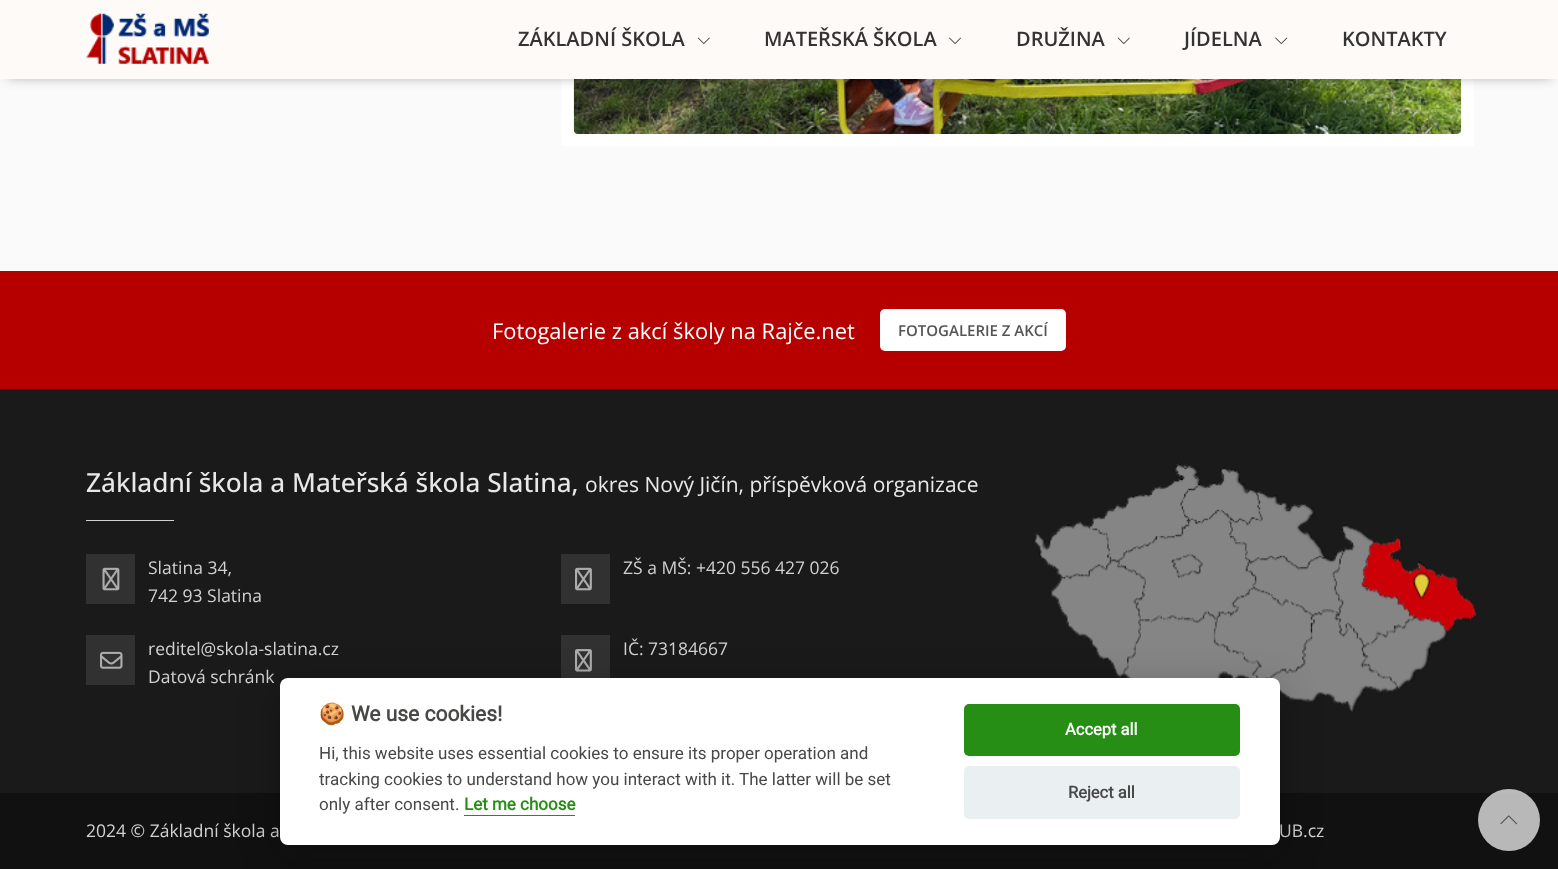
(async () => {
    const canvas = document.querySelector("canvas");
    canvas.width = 1558;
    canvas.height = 869;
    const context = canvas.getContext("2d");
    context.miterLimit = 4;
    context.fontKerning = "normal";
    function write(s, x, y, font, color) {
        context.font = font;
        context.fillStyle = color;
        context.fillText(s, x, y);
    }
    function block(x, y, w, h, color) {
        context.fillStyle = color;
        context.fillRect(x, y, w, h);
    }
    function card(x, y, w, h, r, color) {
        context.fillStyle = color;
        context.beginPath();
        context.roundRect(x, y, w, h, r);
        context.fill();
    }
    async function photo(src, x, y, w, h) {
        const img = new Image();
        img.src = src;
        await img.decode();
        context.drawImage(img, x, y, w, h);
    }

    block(0, 0, 1558, 869, "rgb(250, 250, 250)");
    context.beginPath();
    context.moveTo(567.5, -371);
    context.lineTo(1467.5, -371);
    context.lineTo(1467.5, 140);
    context.lineTo(567.5, 140);
    context.closePath();
    context.strokeStyle = "rgb(255, 255, 255)";
    context.lineWidth = 12.5;
    context.stroke();
    await photo("media/1.png", 573, 79, 889, 55);
    context.fillStyle = "rgba(0, 0, 0, 0.15)";
    context.filter = "blur(6px)";
    context.beginPath();
    context.rect(8, 14, 1543, 64);
    context.fill();
    context.filter = "none";
    context.filter = "blur(6px)";
    context.beginPath();
    context.rect(8, 14, 1543, 64);
    context.fill();
    context.filter = "none";
    block(0, 0, 1558, 79, "rgb(253, 250, 247)");
    await photo("media/2.png", 86, 13, 123, 51);
    write("ZÁKLADNÍ ŠKOLA", 518, 46, "600 20px Open Sans", "rgb(51, 51, 51)");
    await photo("media/3.png", 697, 37, 13, 7);
    write("MATEŘSKÁ ŠKOLA", 764, 46, "600 20px Open Sans", "rgb(51, 51, 51)");
    await photo("media/4.png", 949, 37, 12, 7);
    write("DRUŽINA", 1016, 46, "600 20px Open Sans", "rgb(51, 51, 51)");
    await photo("media/3.png", 1117, 37, 13, 7);
    write("JÍDELNA", 1184, 46, "600 20px Open Sans", "rgb(51, 51, 51)");
    await photo("media/5.png", 1275, 37, 13, 7);
    write("KONTAKTY", 1342, 46, "600 20px Open Sans", "rgb(51, 51, 51)");
    block(0, 271, 1558, 118, "rgb(182, 0, 0)");
    write("Fotogalerie z akcí školy na Rajče.net", 492, 339, "21.9px Open Sans", "rgb(255, 255, 255)");
    card(880, 309, 186, 42, 5, "rgb(255, 255, 255)");
    write("FOTOGALERIE Z AKCÍ", 898, 336, "600 15px Open Sans", "rgb(85, 85, 85)");
    block(0, 389, 1558, 404, "rgb(26, 26, 26)");
    write("Základní škola a Mateřská škola Slatina,", 86, 492, "500 26.25px Open Sans", "rgb(232, 232, 232)");
    write("okres Nový Jičín, příspěvková organizace", 585, 492, "21px Open Sans", "rgb(232, 232, 232)");
    block(86, 520, 88, 1, "rgb(209, 209, 209)");
    block(86, 554, 49, 50, "rgb(49, 49, 49)");
    await photo("media/6.png", 102, 567, 18, 24);
    write("Slatina 34,", 148, 574, "17.5px Open Sans", "rgb(209, 209, 209)");
    write("742 93 Slatina", 148, 602, "17.5px Open Sans", "rgb(209, 209, 209)");
    block(561, 554, 49, 50, "rgb(49, 49, 49)");
    await photo("media/7.png", 575, 567, 17, 24);
    write("ZŠ a MŠ: +420 556 427 026", 623, 574, "17.5px Open Sans", "rgb(209, 209, 209)");
    block(86, 635, 49, 50, "rgb(49, 49, 49)");
    await photo("media/8.png", 100, 651, 23, 18);
    write("reditel@skola-slatina.cz", 148, 655, "17.5px Open Sans", "rgb(209, 209, 209)");
    write("Datová schránk", 148, 683, "17.5px Open Sans", "rgb(209, 209, 209)");
    block(561, 635, 49, 43, "rgb(49, 49, 49)");
    await photo("media/9.png", 575, 649, 17, 23);
    write("IČ: 73184667", 623, 655, "17.5px Open Sans", "rgb(209, 209, 209)");
    await photo("media/10.png", 1034, 463, 442, 252);
    block(0, 793, 1558, 76, "rgb(17, 17, 17)");
    write("2024 © Základní škola a", 86, 837, "17.5px Open Sans", "rgb(209, 209, 209)");
    write("UB.cz", 1279, 837, "17.5px Open Sans", "rgb(209, 209, 209)");
    context.fillStyle = "rgba(255, 255, 255, 0.7)";
    context.beginPath();
    context.arc(1509, 820, 31, 0, Math.PI * 2);
    context.fill();
    await photo("media/11.png", 1500, 815, 18, 10);
    context.fillStyle = "rgba(2, 2, 3, 0.28)";
    context.filter = "blur(19px)";
    context.beginPath();
    context.roundRect(280, 690, 1000, 168, 8);
    context.fill();
    context.filter = "none";
    card(280, 678, 1000, 167, 8, "rgb(255, 255, 255)");
    write("🍪", 319, 721, "bold 21px Noto Color Emoji", "rgb(72, 72, 71)");
    write("We use cookies!", 351, 721, "bold 21px Roboto", "rgb(72, 72, 71)");
    write("Hi, this website uses essential cookies to ensure its proper operation and", 319, 759, "17px Roboto", "rgb(72, 72, 71)");
    write("tracking cookies to understand how you interact with it. The latter will be set", 319, 785, "17px Roboto", "rgb(72, 72, 71)");
    write("only after consent.", 319, 810, "17px Roboto", "rgb(72, 72, 71)");
    write("Let me choose", 464, 810, "bold 17px Roboto", "rgb(38, 141, 21)");
    block(464, 815, 111, 1, "rgb(38, 141, 21)");
    card(964, 704, 276, 52, 5, "rgb(38, 141, 21)");
    write("Accept all", 1065, 735, "bold 16.5px Roboto", "rgb(255, 255, 255)");
    card(964, 766, 276, 53, 5, "rgb(234, 239, 242)");
    write("Reject all", 1068, 798, "bold 16.5px Roboto", "rgb(72, 72, 71)");
})();
